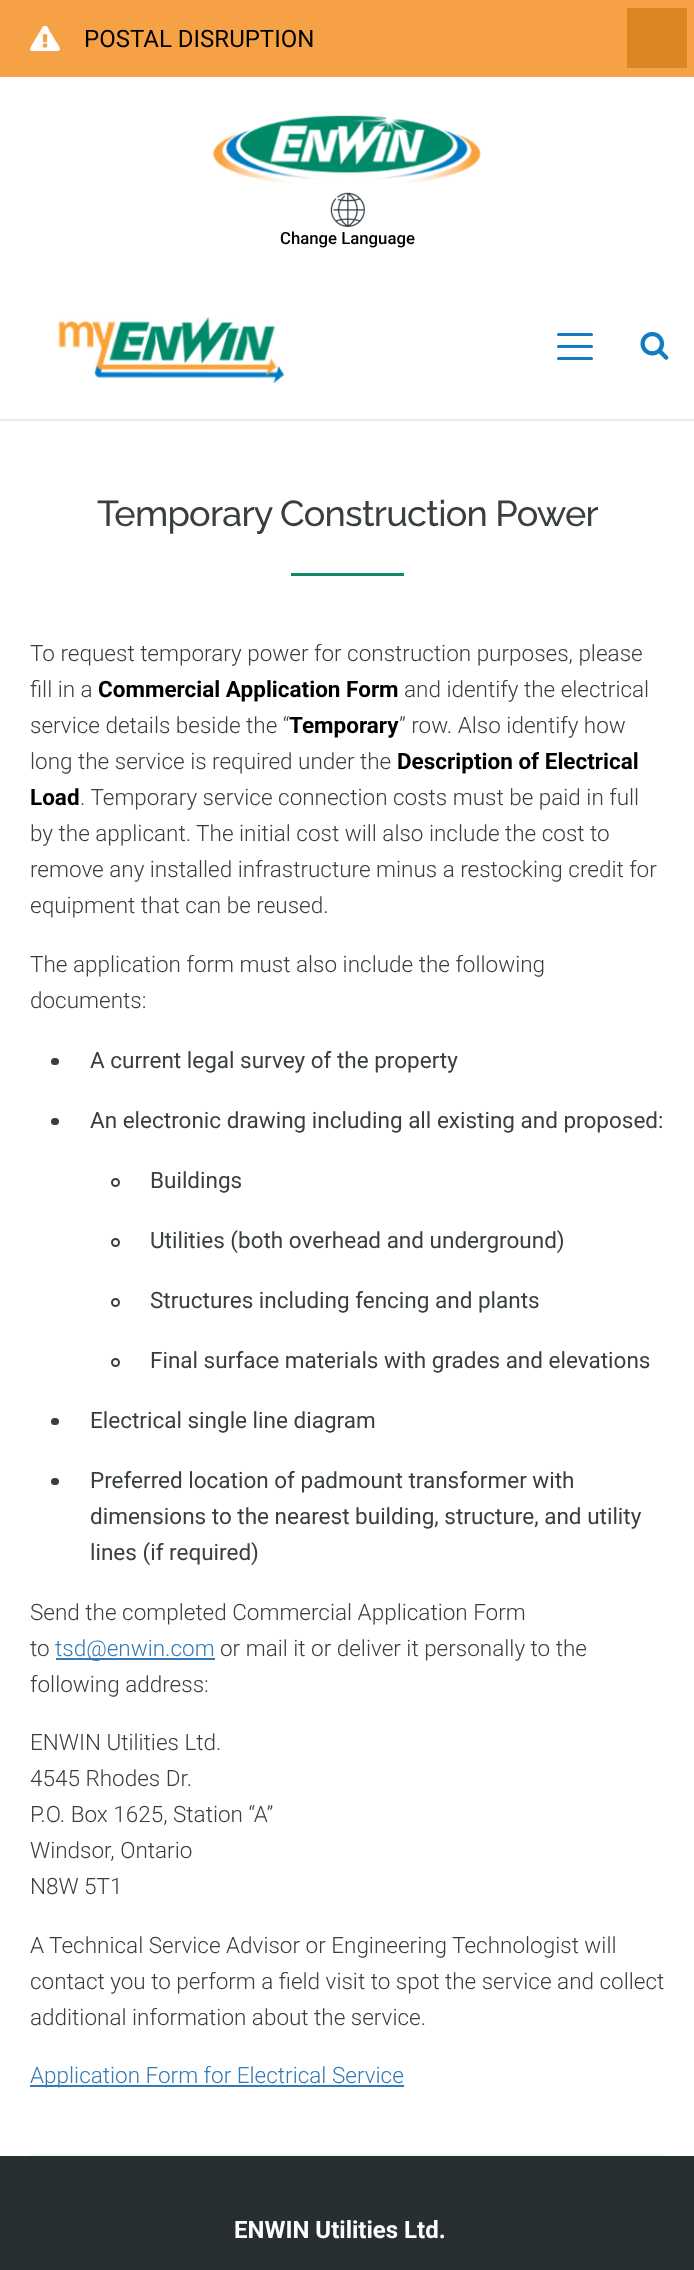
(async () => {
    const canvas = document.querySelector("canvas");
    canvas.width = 694;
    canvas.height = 2270;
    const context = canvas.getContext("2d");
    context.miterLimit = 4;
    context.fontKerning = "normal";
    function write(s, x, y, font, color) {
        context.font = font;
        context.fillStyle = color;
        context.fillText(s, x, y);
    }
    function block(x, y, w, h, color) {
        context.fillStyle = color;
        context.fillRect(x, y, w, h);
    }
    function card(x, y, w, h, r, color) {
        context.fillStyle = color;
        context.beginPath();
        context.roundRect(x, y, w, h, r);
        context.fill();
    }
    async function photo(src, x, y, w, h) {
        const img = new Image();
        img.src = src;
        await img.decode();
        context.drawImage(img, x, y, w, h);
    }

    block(0, 0, 694, 2270, "rgb(255, 255, 255)");
    block(0, 0, 694, 77, "rgb(247, 161, 71)");
    await photo("media/1.png", 30, 26, 30, 25);
    write("POSTAL DISRUPTION", 84, 47, "24px Roboto", "rgb(0, 0, 0)");
    block(627, 8, 60, 60, "rgb(217, 134, 35)");
    await photo("media/2.png", 212, 115, 269, 69);
    await photo("media/3.png", 330, 192, 35, 36);
    write("Change Language", 280, 244, "500 16.75px Roboto", "rgb(0, 0, 0)");
    block(0, 419, 694, 2, "rgb(232, 233, 237)");
    await photo("media/4.png", 58, 316, 227, 68);
    card(557, 345, 36, 3, 1.5, "rgb(18, 124, 192)");
    card(557, 333, 36, 3, 1.5, "rgb(18, 124, 192)");
    card(557, 357, 36, 3, 1.5, "rgb(18, 124, 192)");
    await photo("media/5.png", 640, 331, 29, 29);
    context.letterSpacing = "-0.75px";
    write("Temporary Construction Power", 97, 526, "500 36px Raleway", "rgb(57, 62, 64)");
    block(291, 573, 113, 3, "rgb(18, 136, 106)");
    context.letterSpacing = "0px";
    write("To request temporary power for construction purposes, please", 30, 661, "300 22.5px Roboto", "rgb(57, 62, 64)");
    write("fill in a", 30, 697, "300 22.5px Roboto", "rgb(57, 62, 64)");
    write("Commercial Application Form", 98, 697, "bold 22.5px Roboto", "rgb(0, 0, 0)");
    write("and identify the electrical", 404, 697, "300 22.5px Roboto", "rgb(57, 62, 64)");
    write("service details beside the “", 30, 733, "300 22.5px Roboto", "rgb(57, 62, 64)");
    write("Temporary", 289, 733, "bold 22.5px Roboto", "rgb(0, 0, 0)");
    write("” row. Also identify how", 399, 733, "300 22.5px Roboto", "rgb(57, 62, 64)");
    write("long the service is required under the", 30, 769, "300 22.5px Roboto", "rgb(57, 62, 64)");
    write("Description of Electrical", 397, 769, "bold 22.5px Roboto", "rgb(0, 0, 0)");
    write("Load", 30, 805, "bold 22.5px Roboto", "rgb(0, 0, 0)");
    write(". Temporary service connection costs must be paid in full", 80, 805, "300 22.5px Roboto", "rgb(57, 62, 64)");
    write("by the applicant. The initial cost will also include the cost to", 30, 841, "300 22.5px Roboto", "rgb(57, 62, 64)");
    write("remove any installed infrastructure minus a restocking credit for", 30, 877, "300 22.5px Roboto", "rgb(57, 62, 64)");
    write("equipment that can be reused.", 30, 913, "300 22.5px Roboto", "rgb(57, 62, 64)");
    write("The application form must also include the following", 30, 972, "300 22.5px Roboto", "rgb(57, 62, 64)");
    write("documents:", 30, 1008, "300 22.5px Roboto", "rgb(57, 62, 64)");
    card(51, 1058, 8, 7, 3.5, "rgb(57, 62, 64)");
    write("A current legal survey of the property", 90, 1068, "22.5px Roboto", "rgb(57, 62, 64)");
    card(51, 1118, 8, 7, 3.5, "rgb(57, 62, 64)");
    write("An electronic drawing including all existing and proposed:", 90, 1128, "22.5px Roboto", "rgb(57, 62, 64)");
    context.beginPath();
    context.arc(115.5, 1182.5, 3.5, 0, Math.PI * 2);
    context.strokeStyle = "rgb(57, 62, 64)";
    context.lineWidth = 2;
    context.stroke();
    write("Buildings", 150, 1188, "22.5px Roboto", "rgb(57, 62, 64)");
    context.beginPath();
    context.arc(115.5, 1242.5, 3.5, 0, Math.PI * 2);
    context.stroke();
    write("Utilities (both overhead and underground)", 150, 1248, "22.5px Roboto", "rgb(57, 62, 64)");
    context.beginPath();
    context.arc(115.5, 1302.5, 3.5, 0, Math.PI * 2);
    context.stroke();
    write("Structures including fencing and plants", 150, 1308, "22.5px Roboto", "rgb(57, 62, 64)");
    context.beginPath();
    context.arc(115.5, 1362.5, 3.5, 0, Math.PI * 2);
    context.stroke();
    write("Final surface materials with grades and elevations", 150, 1368, "22.5px Roboto", "rgb(57, 62, 64)");
    card(51, 1418, 8, 7, 3.5, "rgb(57, 62, 64)");
    write("Electrical single line diagram", 90, 1428, "22.5px Roboto", "rgb(57, 62, 64)");
    card(51, 1478, 8, 7, 3.5, "rgb(57, 62, 64)");
    write("Preferred location of padmount transformer with", 90, 1488, "22.5px Roboto", "rgb(57, 62, 64)");
    write("dimensions to the nearest building, structure, and utility", 90, 1524, "22.5px Roboto", "rgb(57, 62, 64)");
    write("lines (if required)", 90, 1560, "22.5px Roboto", "rgb(57, 62, 64)");
    write("Send the completed Commercial Application Form", 30, 1620, "300 22.5px Roboto", "rgb(57, 62, 64)");
    write("to", 30, 1656, "300 22.5px Roboto", "rgb(57, 62, 64)");
    block(56, 1658, 159, 2, "rgb(51, 122, 183)");
    write("tsd@enwin.com", 55, 1656, "300 22.5px Roboto", "rgb(51, 122, 183)");
    write("or mail it or deliver it personally to the", 220, 1656, "300 22.5px Roboto", "rgb(57, 62, 64)");
    write("following address:", 30, 1692, "300 22.5px Roboto", "rgb(57, 62, 64)");
    write("ENWIN Utilities Ltd.", 30, 1750, "300 22.5px Roboto", "rgb(57, 62, 64)");
    write("4545 Rhodes Dr.", 30, 1786, "300 22.5px Roboto", "rgb(57, 62, 64)");
    write("P.O. Box 1625, Station “A”", 30, 1822, "300 22.5px Roboto", "rgb(57, 62, 64)");
    write("Windsor, Ontario", 30, 1858, "300 22.5px Roboto", "rgb(57, 62, 64)");
    write("N8W 5T1", 30, 1894, "300 22.5px Roboto", "rgb(57, 62, 64)");
    write("A Technical Service Advisor or Engineering Technologist will", 30, 1953, "300 22.5px Roboto", "rgb(57, 62, 64)");
    write("contact you to perform a field visit to spot the service and collect", 30, 1989, "300 22.5px Roboto", "rgb(57, 62, 64)");
    write("additional information about the service.", 30, 2025, "300 22.5px Roboto", "rgb(57, 62, 64)");
    block(30, 2085, 374, 2, "rgb(51, 122, 183)");
    write("Application Form for Electrical Service", 30, 2083, "300 22.5px Roboto", "rgb(51, 122, 183)");
    block(30, 2154, 635, 2, "rgb(243, 245, 246)");
    block(0, 2156, 694, 114, "rgb(40, 47, 50)");
    write("ENWIN Utilities Ltd.", 234, 2238, "bold 24px Roboto", "rgb(255, 255, 255)");
})();
